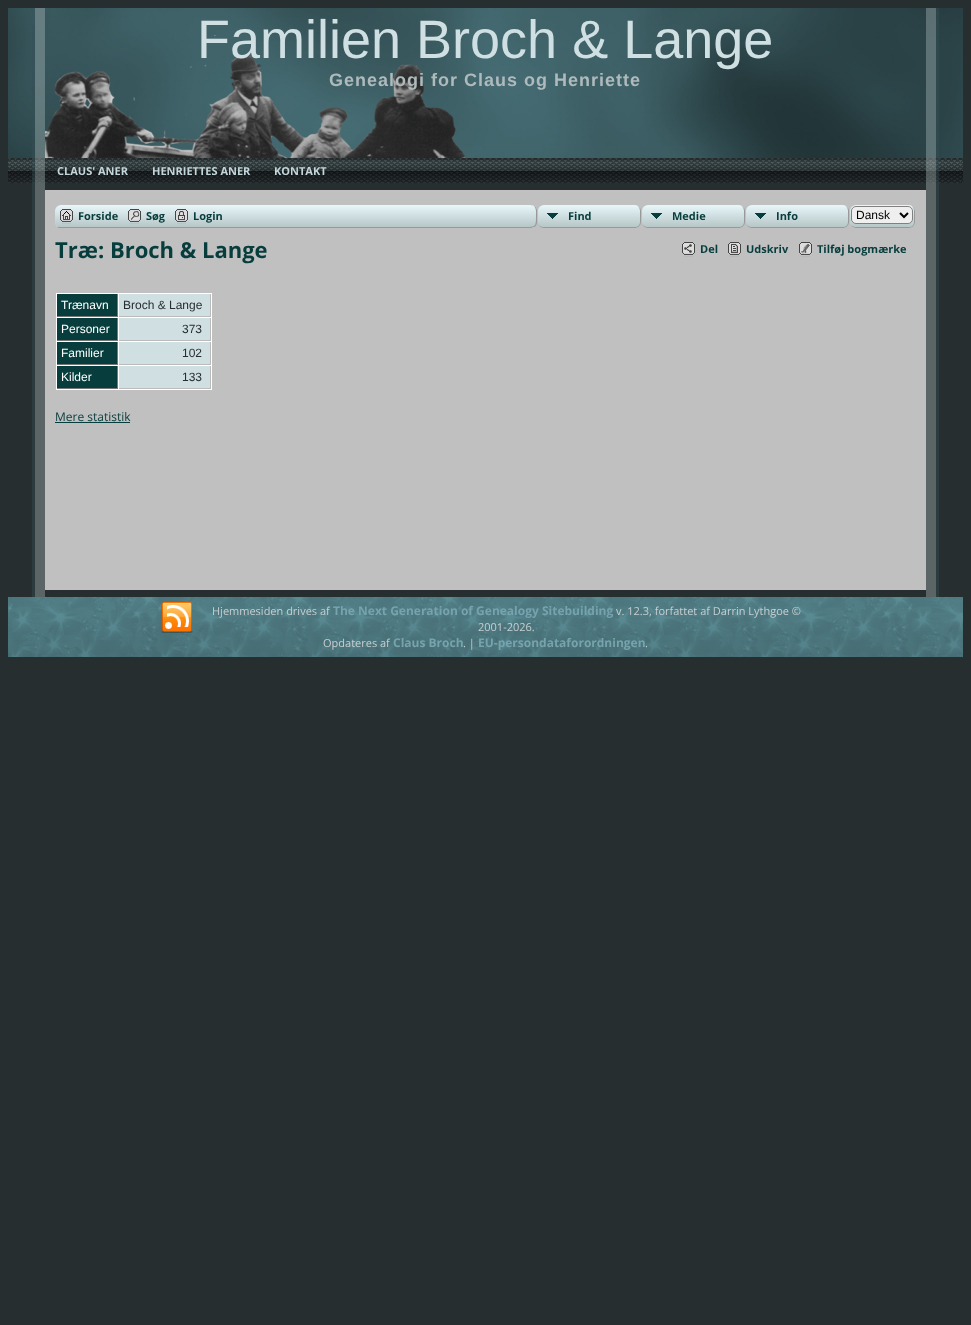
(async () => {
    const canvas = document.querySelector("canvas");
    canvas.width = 971;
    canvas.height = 1325;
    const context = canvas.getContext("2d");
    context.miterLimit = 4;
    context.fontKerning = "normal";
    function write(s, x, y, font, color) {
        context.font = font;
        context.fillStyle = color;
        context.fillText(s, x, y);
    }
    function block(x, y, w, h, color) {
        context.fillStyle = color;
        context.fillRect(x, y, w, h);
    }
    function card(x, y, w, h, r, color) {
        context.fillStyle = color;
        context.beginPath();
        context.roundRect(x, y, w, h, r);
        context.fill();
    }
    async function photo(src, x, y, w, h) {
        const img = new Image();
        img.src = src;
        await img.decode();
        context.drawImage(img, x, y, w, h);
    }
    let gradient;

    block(0, 0, 971, 1325, "rgb(39, 46, 48)");
    await photo("media/1.png", 8, 8, 955, 150);
    block(35, 8, 10, 17, "rgb(102, 126, 129)");
    await photo("media/2.png", 45, 8, 881, 150);
    await photo("media/3.png", 45, 35, 420, 123);
    write("Familien Broch & Lange", 197, 58, "54px Liberation Sans", "rgb(207, 223, 226)");
    context.letterSpacing = "1px";
    write("Genealogi for Claus og Henriette", 329, 86, "bold 18px Liberation Sans", "rgb(174, 186, 188)");
    await photo("media/17.png", 8, 158, 955, 25);
    await photo("media/4.png", 45, 158, 881, 25);
    context.letterSpacing = "0px";
    write("CLAUS' ANER", 57, 175, "bold 11px Open Sans", "rgb(194, 214, 219)");
    write("HENRIETTES ANER", 152, 175, "bold 11px Open Sans", "rgb(194, 214, 219)");
    write("KONTAKT", 274, 175, "bold 11px Open Sans", "rgb(194, 214, 219)");
    block(45, 190, 881, 400, "rgb(192, 192, 192)");
    card(55, 205, 861, 23, 6, "rgb(207, 223, 226)");
    context.save();
    context.beginPath();
    context.roundRect(55, 205, 861, 23, 6);
    context.clip();
    gradient = context.createLinearGradient(486, 205, 486, 227);
    gradient.addColorStop(0, "rgb(231, 247, 250)");
    gradient.addColorStop(1, "rgb(183, 199, 200)");
    context.fillStyle = gradient;
    context.beginPath();
    context.roundRect(55, 205, 861, 22, [6, 6, 0, 0]);
    context.fill();
    context.restore();
    block(58, 227, 468, 1, "rgb(153, 153, 153)");
    await photo("media/5.png", 60, 209, 13, 15);
    write("Forside", 78, 220, "bold 11px Open Sans", "rgb(7, 61, 60)");
    await photo("media/6.png", 128, 209, 13, 15);
    write("Søg", 146, 220, "bold 11px Open Sans", "rgb(7, 61, 60)");
    await photo("media/7.png", 175, 209, 13, 15);
    write("Login", 193, 220, "bold 11px Open Sans", "rgb(7, 61, 60)");
    block(531, 205, 385, 23, "rgb(192, 192, 192)");
    context.save();
    context.beginPath();
    context.roundRect(526, 205, 11, 23, [0, 6, 6, 0]);
    context.clip();
    gradient = context.createLinearGradient(531, 205, 531, 227);
    gradient.addColorStop(0, "rgb(231, 247, 250)");
    gradient.addColorStop(1, "rgb(183, 199, 200)");
    context.fillStyle = gradient;
    context.fillRect(526, 205, 11, 22);
    gradient = context.createLinearGradient(531, 227, 531, 249);
    gradient.addColorStop(0, "rgb(231, 247, 250)");
    gradient.addColorStop(1, "rgb(183, 199, 200)");
    context.fillStyle = gradient;
    context.fillRect(526, 227, 11, 1);
    context.restore();
    context.fillStyle = "rgb(153, 153, 153)";
    context.beginPath();
    context.moveTo(526, 205);
    context.bezierCurveTo(530, 205, 536, 204.5, 537, 210);
    context.lineTo(537, 223);
    context.bezierCurveTo(536, 228.5, 530, 228, 526, 228);
    context.closePath();
    context.moveTo(526, 205);
    context.lineTo(532, 205);
    context.bezierCurveTo(537, 206.5, 536, 213, 536, 216.5);
    context.bezierCurveTo(536, 226.5, 535.5, 227, 526, 227);
    context.closePath();
    context.fill("evenodd");
    await photo("media/8.png", 538, 205, 102, 22);
    context.beginPath();
    context.moveTo(544, 205);
    context.lineTo(635, 205);
    context.bezierCurveTo(638, 205, 641, 208, 641, 211);
    context.lineTo(641, 222);
    context.bezierCurveTo(641, 225, 638, 228, 635, 228);
    context.lineTo(544, 228);
    context.bezierCurveTo(541, 228, 538, 225, 538, 222);
    context.lineTo(538, 211);
    context.bezierCurveTo(538, 208, 541, 205, 544, 205);
    context.closePath();
    context.moveTo(544, 205);
    context.lineTo(635, 205);
    context.bezierCurveTo(638, 205, 640, 208, 640, 211);
    context.lineTo(640, 222);
    context.bezierCurveTo(640, 225, 638, 227, 635, 227);
    context.lineTo(544, 227);
    context.bezierCurveTo(541, 227, 538, 225, 538, 222);
    context.lineTo(538, 211);
    context.bezierCurveTo(538, 208, 541, 205, 544, 205);
    context.closePath();
    context.fill("evenodd");
    write("Find", 568, 220, "bold 11px Open Sans", "rgb(7, 61, 60)");
    await photo("media/8.png", 642, 205, 102, 22);
    context.fillStyle = "rgb(153, 153, 153)";
    context.beginPath();
    context.moveTo(648, 205);
    context.lineTo(739, 205);
    context.bezierCurveTo(742, 205, 745, 208, 745, 211);
    context.lineTo(745, 222);
    context.bezierCurveTo(745, 225, 742, 228, 739, 228);
    context.lineTo(648, 228);
    context.bezierCurveTo(645, 228, 642, 225, 642, 222);
    context.lineTo(642, 211);
    context.bezierCurveTo(642, 208, 645, 205, 648, 205);
    context.closePath();
    context.moveTo(648, 205);
    context.lineTo(739, 205);
    context.bezierCurveTo(742, 205, 744, 208, 744, 211);
    context.lineTo(744, 222);
    context.bezierCurveTo(744, 225, 742, 227, 739, 227);
    context.lineTo(648, 227);
    context.bezierCurveTo(645, 227, 642, 225, 642, 222);
    context.lineTo(642, 211);
    context.bezierCurveTo(642, 208, 645, 205, 648, 205);
    context.closePath();
    context.fill("evenodd");
    write("Medie", 672, 220, "bold 11px Open Sans", "rgb(7, 61, 60)");
    await photo("media/8.png", 746, 205, 102, 22);
    context.fillStyle = "rgb(153, 153, 153)";
    context.beginPath();
    context.moveTo(752, 205);
    context.lineTo(843, 205);
    context.bezierCurveTo(846, 205, 849, 208, 849, 211);
    context.lineTo(849, 222);
    context.bezierCurveTo(849, 225, 846, 228, 843, 228);
    context.lineTo(752, 228);
    context.bezierCurveTo(749, 228, 746, 225, 746, 222);
    context.lineTo(746, 211);
    context.bezierCurveTo(746, 208, 749, 205, 752, 205);
    context.closePath();
    context.moveTo(752, 205);
    context.lineTo(843, 205);
    context.bezierCurveTo(846, 205, 848, 208, 848, 211);
    context.lineTo(848, 222);
    context.bezierCurveTo(848, 225, 846, 227, 843, 227);
    context.lineTo(752, 227);
    context.bezierCurveTo(749, 227, 746, 225, 746, 222);
    context.lineTo(746, 211);
    context.bezierCurveTo(746, 208, 749, 205, 752, 205);
    context.closePath();
    context.fill("evenodd");
    write("Info", 776, 220, "bold 11px Open Sans", "rgb(7, 61, 60)");
    card(850, 205, 65, 23, 6, "rgb(207, 223, 226)");
    context.save();
    context.beginPath();
    context.roundRect(850, 205, 65, 23, 6);
    context.clip();
    gradient = context.createLinearGradient(882, 205, 882, 227);
    gradient.addColorStop(0, "rgb(231, 247, 250)");
    gradient.addColorStop(1, "rgb(183, 199, 200)");
    context.fillStyle = gradient;
    context.beginPath();
    context.roundRect(850, 205, 65, 22, [6, 6, 0, 0]);
    context.fill();
    context.restore();
    context.fillStyle = "rgb(153, 153, 153)";
    context.beginPath();
    context.moveTo(856, 205);
    context.lineTo(909, 205);
    context.bezierCurveTo(912, 205, 915, 208, 915, 211);
    context.lineTo(915, 222);
    context.bezierCurveTo(915, 225, 912, 228, 909, 228);
    context.lineTo(856, 228);
    context.bezierCurveTo(853, 228, 850, 225, 850, 222);
    context.lineTo(850, 211);
    context.bezierCurveTo(850, 208, 853, 205, 856, 205);
    context.closePath();
    context.moveTo(856, 205);
    context.lineTo(909, 205);
    context.bezierCurveTo(912, 205, 914, 208, 914, 211);
    context.lineTo(914, 222);
    context.bezierCurveTo(914, 225, 912, 227, 909, 227);
    context.lineTo(856, 227);
    context.bezierCurveTo(853, 227, 850, 225, 850, 222);
    context.lineTo(850, 211);
    context.bezierCurveTo(850, 208, 853, 205, 856, 205);
    context.closePath();
    context.fill("evenodd");
    context.fillStyle = "rgb(239, 239, 239)";
    context.beginPath();
    context.roundRect(851.5, 206.5, 61, 17, 4.5);
    context.fill();
    context.strokeStyle = "rgb(128, 128, 128)";
    context.stroke();
    context.beginPath();
    context.moveTo(900, 213);
    context.lineTo(904, 217);
    context.lineTo(908, 213);
    context.strokeStyle = "rgb(0, 0, 0)";
    context.lineWidth = 2;
    context.stroke();
    write("Dansk", 856, 219, "12px Liberation Sans", "rgb(0, 0, 0)");
    write("Træ: Broch & Lange", 55, 258, "bold 22px Open Sans", "rgb(7, 61, 60)");
    await photo("media/9.png", 682, 242, 13, 15);
    write("Del", 700, 253, "bold 11px Open Sans", "rgb(7, 61, 60)");
    await photo("media/10.png", 728, 242, 13, 15);
    write("Udskriv", 746, 253, "bold 11px Open Sans", "rgb(7, 61, 60)");
    await photo("media/11.png", 799, 242, 13, 15);
    write("Tilføj bogmærke", 817, 253, "bold 11px Open Sans", "rgb(7, 61, 60)");
    block(56, 293, 156, 97, "rgb(255, 255, 255)");
    block(57, 294, 60, 22, "rgb(7, 61, 60)");
    block(117, 294, 1, 23, "rgb(119, 119, 119)");
    block(57, 316, 61, 1, "rgb(119, 119, 119)");
    write("Trænavn", 61, 309, "12px Liberation Sans", "rgb(255, 255, 255)");
    block(119, 294, 91, 22, "rgb(207, 223, 226)");
    block(210, 294, 1, 23, "rgb(187, 187, 187)");
    block(119, 316, 92, 1, "rgb(187, 187, 187)");
    write("Broch & Lange", 123, 309, "12px Liberation Sans", "rgb(39, 46, 48)");
    block(57, 318, 60, 22, "rgb(7, 61, 60)");
    block(117, 318, 1, 23, "rgb(119, 119, 119)");
    block(57, 340, 61, 1, "rgb(119, 119, 119)");
    write("Personer", 61, 333, "12px Liberation Sans", "rgb(255, 255, 255)");
    block(119, 318, 91, 22, "rgb(207, 223, 226)");
    block(210, 318, 1, 23, "rgb(187, 187, 187)");
    block(119, 340, 92, 1, "rgb(187, 187, 187)");
    write("373", 182, 333, "12px Liberation Sans", "rgb(39, 46, 48)");
    block(57, 342, 60, 22, "rgb(7, 61, 60)");
    block(117, 342, 1, 23, "rgb(119, 119, 119)");
    block(57, 364, 61, 1, "rgb(119, 119, 119)");
    write("Familier", 61, 357, "12px Liberation Sans", "rgb(255, 255, 255)");
    block(119, 342, 91, 22, "rgb(207, 223, 226)");
    block(210, 342, 1, 23, "rgb(187, 187, 187)");
    block(119, 364, 92, 1, "rgb(187, 187, 187)");
    write("102", 182, 357, "12px Liberation Sans", "rgb(39, 46, 48)");
    block(57, 366, 60, 22, "rgb(7, 61, 60)");
    block(117, 366, 1, 23, "rgb(119, 119, 119)");
    block(57, 388, 61, 1, "rgb(119, 119, 119)");
    write("Kilder", 61, 381, "12px Liberation Sans", "rgb(255, 255, 255)");
    block(119, 366, 91, 22, "rgb(207, 223, 226)");
    block(210, 366, 1, 23, "rgb(187, 187, 187)");
    block(119, 388, 92, 1, "rgb(187, 187, 187)");
    write("133", 182, 381, "12px Liberation Sans", "rgb(39, 46, 48)");
    write("Mere statistik", 55, 421, "12px Open Sans", "rgb(7, 61, 60)");
    block(55, 422, 75, 1, "rgb(7, 61, 60)");
    await photo("media/12.png", 926, 8, 13, 17);
    await photo("media/13.png", 32, 25, 13, 555);
    await photo("media/14.png", 926, 25, 13, 555);
    await photo("media/15.png", 32, 580, 13, 17);
    await photo("media/16.png", 926, 580, 13, 17);
    await photo("media/18.png", 8, 597, 955, 10);
    await photo("media/20.png", 8, 607, 955, 50);
    await photo("media/19.png", 161, 602, 32, 31);
    write("Hjemmesiden drives af", 212, 615, "11px Open Sans", "rgb(199, 207, 209)");
    write("The Next Generation of Genealogy Sitebuilding", 333, 615, "bold 12px Open Sans", "rgb(118, 163, 173)");
    write("v. 12.3, forfattet af Darrin Lythgoe ©", 616, 615, "11px Open Sans", "rgb(199, 207, 209)");
    write("2001-2026.", 478, 631, "11px Open Sans", "rgb(199, 207, 209)");
    write("Opdateres af", 323, 647, "11px Open Sans", "rgb(199, 207, 209)");
    write("Claus Broch", 393, 647, "bold 12px Open Sans", "rgb(118, 163, 173)");
    write(". |", 463, 647, "11px Open Sans", "rgb(199, 207, 209)");
    write("EU-persondataforordningen", 478, 647, "bold 12px Open Sans", "rgb(118, 163, 173)");
    write(".", 645, 647, "11px Open Sans", "rgb(199, 207, 209)");
})();
